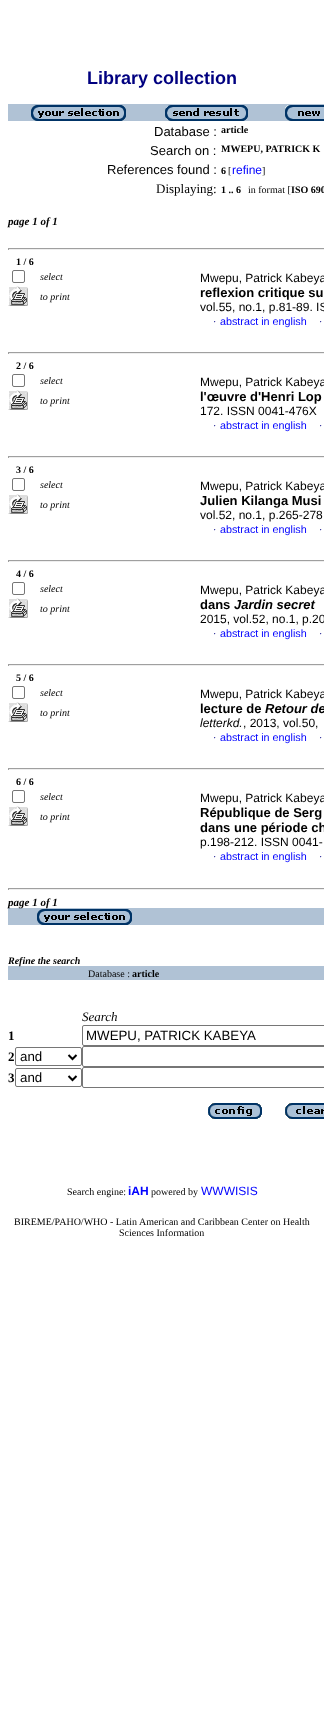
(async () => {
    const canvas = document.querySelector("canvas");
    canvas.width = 324;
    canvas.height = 1715;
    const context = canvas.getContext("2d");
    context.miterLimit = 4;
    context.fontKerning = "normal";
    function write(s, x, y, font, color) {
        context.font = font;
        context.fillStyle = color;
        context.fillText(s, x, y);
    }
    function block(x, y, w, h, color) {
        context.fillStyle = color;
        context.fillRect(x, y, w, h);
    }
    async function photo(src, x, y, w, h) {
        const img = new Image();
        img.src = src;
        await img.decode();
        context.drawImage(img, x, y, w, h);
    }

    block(0, 0, 324, 1715, "rgb(255, 255, 255)");
    write("Library collection", 87, 84, "bold 18px Liberation Sans", "rgb(0, 0, 128)");
    block(8, 104, 316, 17, "rgb(176, 194, 213)");
    await photo("media/1.png", 31, 105, 95, 16);
    await photo("media/2.png", 165, 105, 83, 16);
    await photo("media/3.png", 285, 105, 39, 16);
    write("Database :", 154, 136, "13px Liberation Sans", "rgb(0, 0, 0)");
    write("article", 221, 133, "bold 10px Liberation Serif", "rgb(0, 0, 0)");
    write("Search on :", 150, 155, "13px Liberation Sans", "rgb(0, 0, 0)");
    write("MWEPU, PATRICK K", 221, 152, "bold 10px Liberation Serif", "rgb(0, 0, 0)");
    write("References found :", 107, 174, "13px Liberation Sans", "rgb(0, 0, 0)");
    write("6", 221, 174, "bold 10px Liberation Serif", "rgb(0, 0, 0)");
    write("[", 228, 174, "10px Liberation Serif", "rgb(0, 0, 0)");
    write("refine", 232, 174, "12px Liberation Sans", "rgb(0, 0, 255)");
    write("]", 262, 174, "10px Liberation Serif", "rgb(0, 0, 0)");
    write("Displaying:", 156, 193, "13px Liberation Serif", "rgb(0, 0, 0)");
    write("1 .. 6", 221, 193, "bold 10px Liberation Serif", "rgb(0, 0, 0)");
    write("in format [", 248, 193, "10px Liberation Serif", "rgb(0, 0, 0)");
    write("ISO 690", 291, 193, "bold 10px Liberation Serif", "rgb(0, 0, 0)");
    write("page 1 of 1", 8, 225, "italic bold 11px Liberation Serif", "rgb(0, 0, 0)");
    block(8, 248, 316, 1, "rgb(159, 159, 159)");
    block(8, 249, 316, 1, "rgb(238, 238, 238)");
    block(8, 248, 1, 2, "rgb(159, 159, 159)");
    write("1 / 6", 16, 265, "bold 10px Liberation Serif", "rgb(0, 0, 0)");
    context.beginPath();
    context.roundRect(12.5, 270.5, 12, 12, 1.5);
    context.strokeStyle = "rgb(118, 118, 118)";
    context.stroke();
    write("select", 40, 280, "italic 10px Liberation Serif", "rgb(0, 0, 0)");
    await photo("media/4.png", 8, 286, 20, 20);
    write("to print", 40, 300, "italic 10px Liberation Serif", "rgb(0, 0, 0)");
    write("Mwepu, Patrick Kabeya", 200, 282, "12px Liberation Sans", "rgb(0, 0, 0)");
    write("reflexion critique su", 200, 297, "bold 13px Liberation Sans", "rgb(0, 0, 0)");
    write("vol.55, no.1, p.81-89. IS", 200, 311, "12px Liberation Sans", "rgb(0, 0, 0)");
    write("·", 213, 325, "10px Liberation Serif", "rgb(0, 0, 128)");
    write("abstract in english", 220, 325, "10.75px Liberation Sans", "rgb(0, 0, 255)");
    write("·", 319, 325, "10px Liberation Serif", "rgb(0, 0, 128)");
    block(8, 352, 316, 1, "rgb(159, 159, 159)");
    block(8, 353, 316, 1, "rgb(238, 238, 238)");
    block(8, 352, 1, 2, "rgb(159, 159, 159)");
    write("2 / 6", 16, 369, "bold 10px Liberation Serif", "rgb(0, 0, 0)");
    context.beginPath();
    context.roundRect(12.5, 374.5, 12, 12, 1.5);
    context.stroke();
    write("select", 40, 384, "italic 10px Liberation Serif", "rgb(0, 0, 0)");
    await photo("media/4.png", 8, 390, 20, 20);
    write("to print", 40, 404, "italic 10px Liberation Serif", "rgb(0, 0, 0)");
    write("Mwepu, Patrick Kabeya", 200, 386, "12px Liberation Sans", "rgb(0, 0, 0)");
    write("l'œuvre d'Henri Lop", 200, 401, "bold 13px Liberation Sans", "rgb(0, 0, 0)");
    write("172. ISSN 0041-476X", 200, 415, "12px Liberation Sans", "rgb(0, 0, 0)");
    write("·", 213, 429, "10px Liberation Serif", "rgb(0, 0, 128)");
    write("abstract in english", 220, 429, "10.75px Liberation Sans", "rgb(0, 0, 255)");
    write("·", 319, 429, "10px Liberation Serif", "rgb(0, 0, 128)");
    block(8, 456, 316, 1, "rgb(159, 159, 159)");
    block(8, 457, 316, 1, "rgb(238, 238, 238)");
    block(8, 456, 1, 2, "rgb(159, 159, 159)");
    write("3 / 6", 16, 473, "bold 10px Liberation Serif", "rgb(0, 0, 0)");
    context.beginPath();
    context.roundRect(12.5, 478.5, 12, 12, 1.5);
    context.stroke();
    write("select", 40, 488, "italic 10px Liberation Serif", "rgb(0, 0, 0)");
    await photo("media/4.png", 8, 494, 20, 20);
    write("to print", 40, 508, "italic 10px Liberation Serif", "rgb(0, 0, 0)");
    write("Mwepu, Patrick Kabeya", 200, 490, "12px Liberation Sans", "rgb(0, 0, 0)");
    write("Julien Kilanga Musi", 200, 505, "bold 13px Liberation Sans", "rgb(0, 0, 0)");
    write("vol.52, no.1, p.265-278", 200, 519, "12px Liberation Sans", "rgb(0, 0, 0)");
    write("·", 213, 533, "10px Liberation Serif", "rgb(0, 0, 128)");
    write("abstract in english", 220, 533, "10.75px Liberation Sans", "rgb(0, 0, 255)");
    write("·", 319, 533, "10px Liberation Serif", "rgb(0, 0, 128)");
    block(8, 560, 316, 1, "rgb(159, 159, 159)");
    block(8, 561, 316, 1, "rgb(238, 238, 238)");
    block(8, 560, 1, 2, "rgb(159, 159, 159)");
    write("4 / 6", 16, 577, "bold 10px Liberation Serif", "rgb(0, 0, 0)");
    context.beginPath();
    context.roundRect(12.5, 582.5, 12, 12, 1.5);
    context.stroke();
    write("select", 40, 592, "italic 10px Liberation Serif", "rgb(0, 0, 0)");
    await photo("media/4.png", 8, 598, 20, 20);
    write("to print", 40, 612, "italic 10px Liberation Serif", "rgb(0, 0, 0)");
    write("Mwepu, Patrick Kabeya", 200, 594, "12px Liberation Sans", "rgb(0, 0, 0)");
    write("dans", 200, 609, "bold 13px Liberation Sans", "rgb(0, 0, 0)");
    write("Jardin secret", 234, 609, "italic bold 13px Liberation Sans", "rgb(0, 0, 0)");
    write("2015, vol.52, no.1, p.20", 200, 623, "12px Liberation Sans", "rgb(0, 0, 0)");
    write("·", 213, 637, "10px Liberation Serif", "rgb(0, 0, 128)");
    write("abstract in english", 220, 637, "10.75px Liberation Sans", "rgb(0, 0, 255)");
    write("·", 319, 637, "10px Liberation Serif", "rgb(0, 0, 128)");
    block(8, 664, 316, 1, "rgb(159, 159, 159)");
    block(8, 665, 316, 1, "rgb(238, 238, 238)");
    block(8, 664, 1, 2, "rgb(159, 159, 159)");
    write("5 / 6", 16, 681, "bold 10px Liberation Serif", "rgb(0, 0, 0)");
    context.beginPath();
    context.roundRect(12.5, 686.5, 12, 12, 1.5);
    context.stroke();
    write("select", 40, 696, "italic 10px Liberation Serif", "rgb(0, 0, 0)");
    await photo("media/4.png", 8, 702, 20, 20);
    write("to print", 40, 716, "italic 10px Liberation Serif", "rgb(0, 0, 0)");
    write("Mwepu, Patrick Kabeya", 200, 698, "12px Liberation Sans", "rgb(0, 0, 0)");
    write("lecture de", 200, 713, "bold 13px Liberation Sans", "rgb(0, 0, 0)");
    write("Retour de", 265, 713, "italic bold 13px Liberation Sans", "rgb(0, 0, 0)");
    write("letterkd.", 200, 727, "italic 12px Liberation Sans", "rgb(0, 0, 0)");
    write(", 2013, vol.50,", 243, 727, "12px Liberation Sans", "rgb(0, 0, 0)");
    write("·", 213, 741, "10px Liberation Serif", "rgb(0, 0, 128)");
    write("abstract in english", 220, 741, "10.75px Liberation Sans", "rgb(0, 0, 255)");
    write("·", 319, 741, "10px Liberation Serif", "rgb(0, 0, 128)");
    block(8, 768, 316, 1, "rgb(159, 159, 159)");
    block(8, 769, 316, 1, "rgb(238, 238, 238)");
    block(8, 768, 1, 2, "rgb(159, 159, 159)");
    write("6 / 6", 16, 785, "bold 10px Liberation Serif", "rgb(0, 0, 0)");
    context.beginPath();
    context.roundRect(12.5, 790.5, 12, 12, 1.5);
    context.stroke();
    write("select", 40, 800, "italic 10px Liberation Serif", "rgb(0, 0, 0)");
    await photo("media/4.png", 8, 806, 20, 20);
    write("to print", 40, 820, "italic 10px Liberation Serif", "rgb(0, 0, 0)");
    write("Mwepu, Patrick Kabeya", 200, 802, "12px Liberation Sans", "rgb(0, 0, 0)");
    write("République de Serg", 200, 817, "bold 13px Liberation Sans", "rgb(0, 0, 0)");
    write("dans une période ch", 200, 832, "bold 13px Liberation Sans", "rgb(0, 0, 0)");
    write("p.198-212. ISSN 0041-", 200, 846, "12px Liberation Sans", "rgb(0, 0, 0)");
    write("·", 213, 860, "10px Liberation Serif", "rgb(0, 0, 128)");
    write("abstract in english", 220, 860, "10.75px Liberation Sans", "rgb(0, 0, 255)");
    write("·", 319, 860, "10px Liberation Serif", "rgb(0, 0, 128)");
    block(8, 888, 316, 1, "rgb(159, 159, 159)");
    block(8, 889, 316, 1, "rgb(238, 238, 238)");
    block(8, 888, 1, 2, "rgb(159, 159, 159)");
    block(8, 908, 316, 17, "rgb(176, 194, 213)");
    write("page 1 of 1", 8, 906, "italic bold 11px Liberation Serif", "rgb(0, 0, 0)");
    await photo("media/1.png", 37, 909, 95, 16);
    block(8, 966, 316, 14, "rgb(176, 194, 213)");
    write("Refine the search", 8, 964, "italic bold 10px Liberation Serif", "rgb(0, 0, 0)");
    write("Database :", 88, 977, "10px Liberation Serif", "rgb(0, 0, 0)");
    write("article", 132, 977, "bold 10px Liberation Serif", "rgb(0, 0, 0)");
    write("Search", 82, 1021, "italic 13px Liberation Serif", "rgb(0, 0, 0)");
    write("1", 8, 1040, "bold 13px Liberation Serif", "rgb(0, 0, 0)");
    context.beginPath();
    context.roundRect(82.5, 1025.5, 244, 20, 1.5);
    context.stroke();
    write("MWEPU, PATRICK KABEYA", 86, 1040, "13.3px Liberation Sans", "rgb(0, 0, 0)");
    write("2", 8, 1061, "bold 13px Liberation Serif", "rgb(0, 0, 0)");
    context.beginPath();
    context.roundRect(15.5, 1047.5, 66, 18, 1.5);
    context.stroke();
    context.beginPath();
    context.moveTo(68.5, 1055);
    context.lineTo(72.5, 1059);
    context.lineTo(76.5, 1055);
    context.strokeStyle = "rgb(0, 0, 0)";
    context.lineWidth = 2;
    context.stroke();
    write("and", 20, 1061, "13.3px Liberation Sans", "rgb(0, 0, 0)");
    context.beginPath();
    context.roundRect(82.5, 1046.5, 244, 20, 1.5);
    context.strokeStyle = "rgb(118, 118, 118)";
    context.lineWidth = 1;
    context.stroke();
    write("3", 8, 1082, "bold 13px Liberation Serif", "rgb(0, 0, 0)");
    context.beginPath();
    context.roundRect(15.5, 1068.5, 66, 18, 1.5);
    context.stroke();
    context.beginPath();
    context.moveTo(68.5, 1076);
    context.lineTo(72.5, 1080);
    context.lineTo(76.5, 1076);
    context.strokeStyle = "rgb(0, 0, 0)";
    context.lineWidth = 2;
    context.stroke();
    write("and", 20, 1082, "13.3px Liberation Sans", "rgb(0, 0, 0)");
    context.beginPath();
    context.roundRect(82.5, 1067.5, 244, 20, 1.5);
    context.strokeStyle = "rgb(118, 118, 118)";
    context.lineWidth = 1;
    context.stroke();
    await photo("media/5.png", 208, 1103, 54, 16);
    await photo("media/6.png", 285, 1103, 39, 16);
    write("Search engine:", 67, 1195, "10px Liberation Serif", "rgb(0, 0, 0)");
    write("iAH", 128, 1195, "bold 12px Liberation Sans", "rgb(0, 0, 255)");
    write("powered by", 151, 1195, "10px Liberation Serif", "rgb(0, 0, 0)");
    write("WWWISIS", 201, 1195, "12px Liberation Sans", "rgb(0, 0, 255)");
    write("BIREME/PAHO/WHO - Latin American and Caribbean Center on Health", 14, 1225, "10px Liberation Serif", "rgb(0, 0, 0)");
    write("Sciences Information", 119, 1236, "10px Liberation Serif", "rgb(0, 0, 0)");
})();
